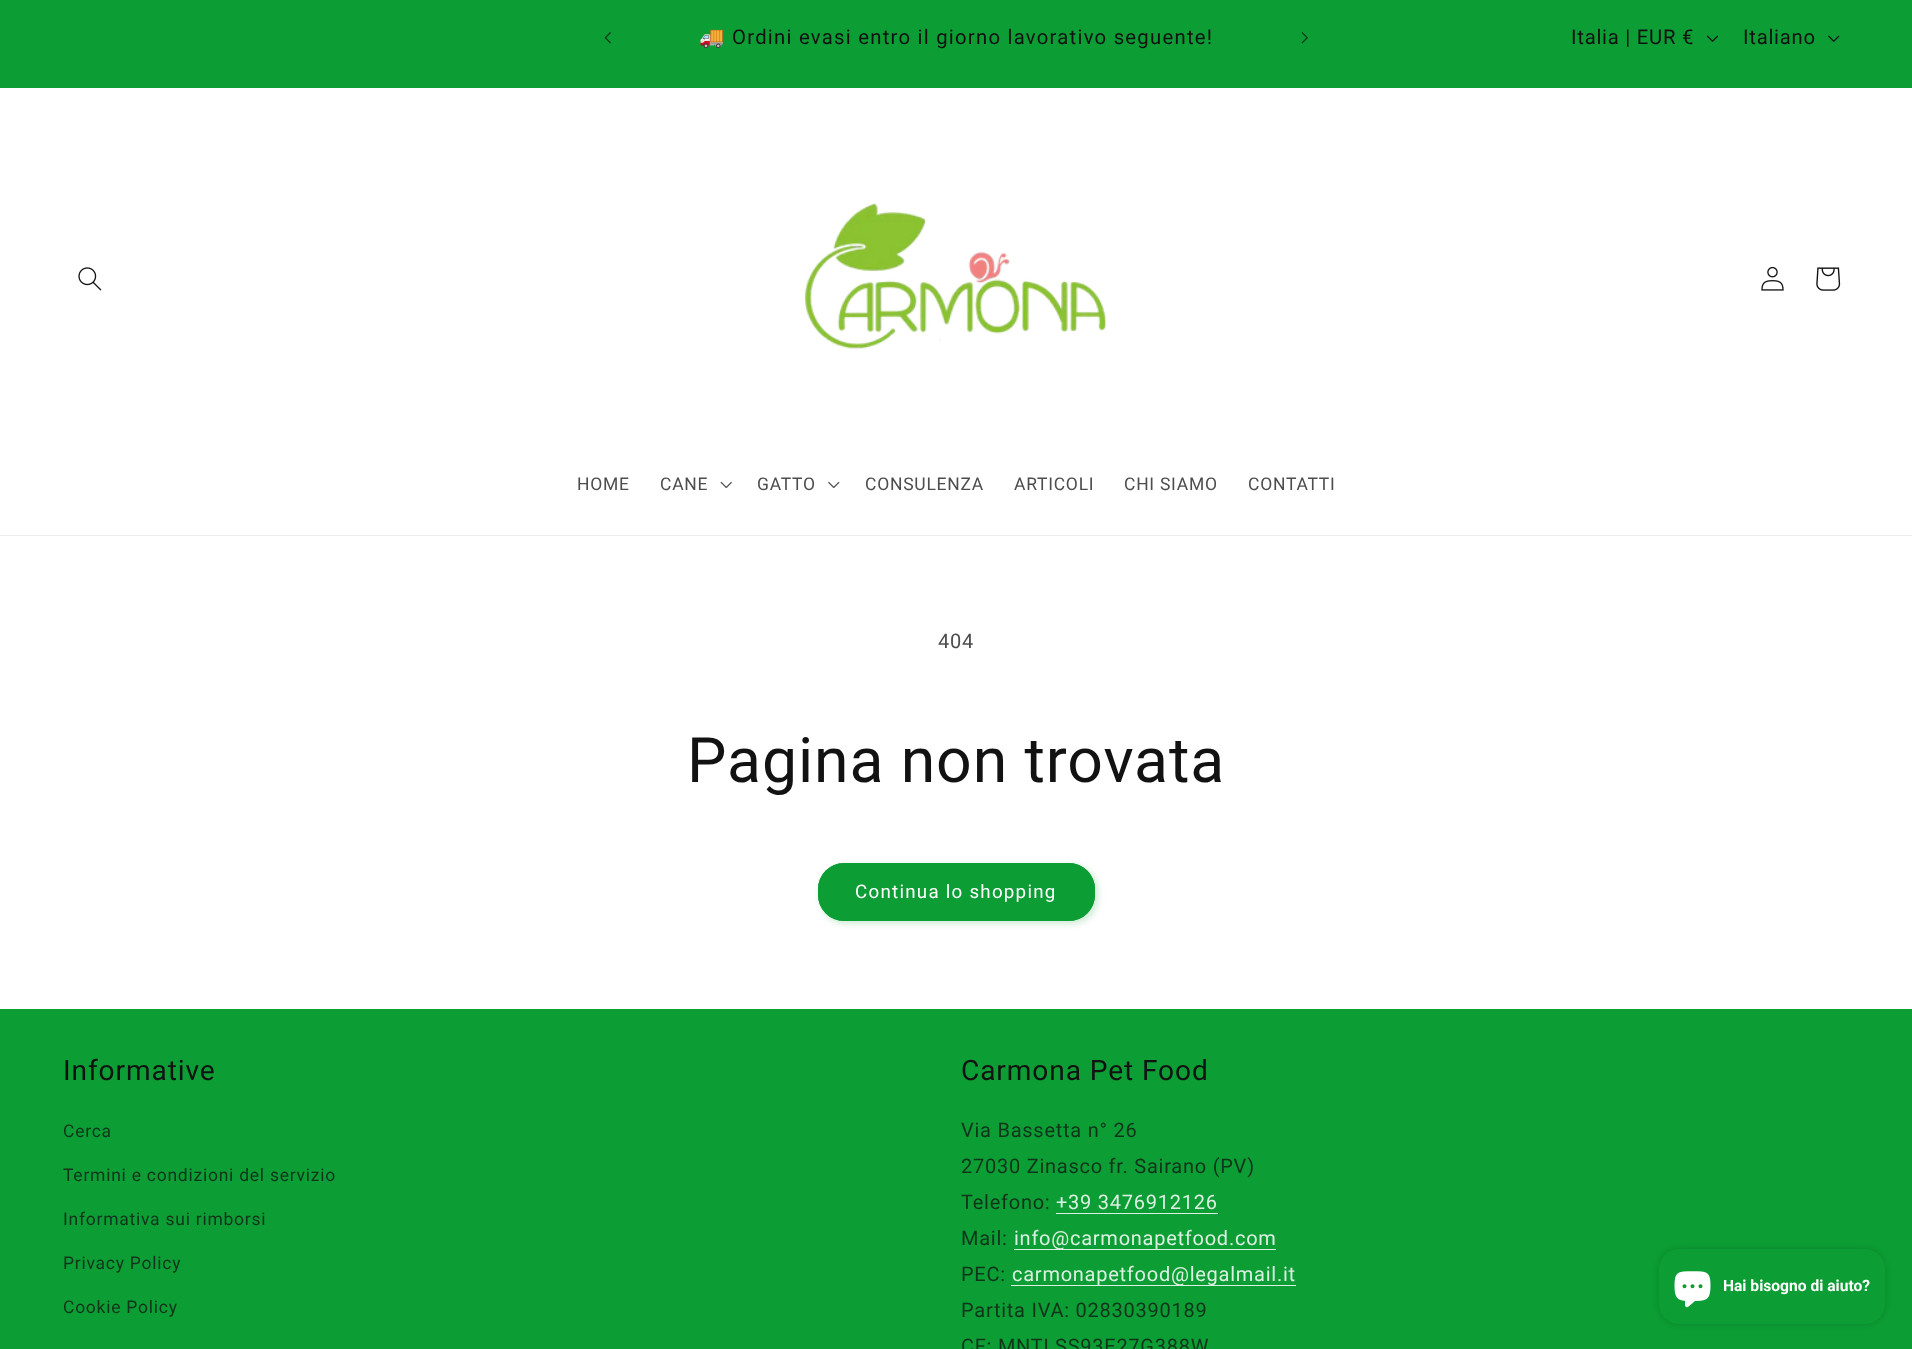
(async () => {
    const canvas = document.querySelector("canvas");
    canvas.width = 1912;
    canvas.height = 1349;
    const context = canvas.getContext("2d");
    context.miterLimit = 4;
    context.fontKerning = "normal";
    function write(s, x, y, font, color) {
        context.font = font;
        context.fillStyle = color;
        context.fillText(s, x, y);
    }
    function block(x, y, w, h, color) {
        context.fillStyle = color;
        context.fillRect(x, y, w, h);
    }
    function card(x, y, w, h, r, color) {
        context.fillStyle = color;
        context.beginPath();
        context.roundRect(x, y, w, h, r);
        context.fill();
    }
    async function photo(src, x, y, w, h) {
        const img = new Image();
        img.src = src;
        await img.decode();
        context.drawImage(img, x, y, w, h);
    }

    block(0, 0, 1912, 1349, "rgb(255, 255, 255)");
    block(0, 0, 1912, 88, "rgb(12, 157, 52)");
    await photo("media/1.png", 604, 32, 7, 12);
    context.letterSpacing = "1.25px";
    write("🚚", 699, 44, "20.3px Noto Color Emoji", "rgb(18, 18, 18)");
    write("Ordini evasi entro il giorno lavorativo seguente!", 732, 44, "20.3px Roboto", "rgb(18, 18, 18)");
    await photo("media/2.png", 1301, 32, 7, 12);
    context.letterSpacing = "0.75px";
    write("Italia | EUR €", 1571, 44, "20.3px Roboto", "rgb(18, 18, 18)");
    await photo("media/3.png", 1706, 35, 13, 7);
    write("Italiano", 1743, 44, "20.3px Roboto", "rgb(18, 18, 18)");
    await photo("media/4.png", 1828, 35, 12, 7);
    block(0, 535, 1912, 1, "rgb(236, 236, 236)");
    await photo("media/5.png", 78, 267, 24, 24);
    await photo("media/6.png", 804, 203, 303, 146);
    await photo("media/7.png", 1761, 266, 23, 25);
    await photo("media/8.png", 1816, 267, 25, 24);
    write("HOME", 577, 490, "17.5px Roboto", "rgb(77, 77, 77)");
    write("CANE", 660, 490, "17.5px Roboto", "rgb(77, 77, 77)");
    await photo("media/9.png", 720, 481, 12, 8);
    write("GATTO", 757, 490, "17.5px Roboto", "rgb(77, 77, 77)");
    await photo("media/10.png", 828, 481, 12, 8);
    write("CONSULENZA", 865, 490, "17.5px Roboto", "rgb(77, 77, 77)");
    write("ARTICOLI", 1014, 490, "17.5px Roboto", "rgb(77, 77, 77)");
    write("CHI SIAMO", 1124, 490, "17.5px Roboto", "rgb(77, 77, 77)");
    write("CONTATTI", 1248, 490, "17.5px Roboto", "rgb(77, 77, 77)");
    write("404", 938, 648, "20px Roboto", "rgb(77, 77, 77)");
    context.letterSpacing = "0.9px";
    write("Pagina non trovata", 687, 782, "62.5px Roboto", "rgb(18, 18, 18)");
    context.fillStyle = "rgba(12, 157, 52, 0.2)";
    context.filter = "blur(3px)";
    context.beginPath();
    context.roundRect(820, 865, 278, 59, 26);
    context.fill();
    context.filter = "none";
    card(818, 863, 277, 58, 26, "rgb(12, 157, 52)");
    context.beginPath();
    context.roundRect(818.5, 863.5, 276, 57, 25.5);
    context.strokeStyle = "rgb(12, 157, 52)";
    context.stroke();
    context.letterSpacing = "1.25px";
    write("Continua lo shopping", 855, 898, "18.75px Roboto", "rgb(255, 255, 255)");
    block(0, 1009, 1912, 340, "rgb(12, 157, 52)");
    context.letterSpacing = "0.9px";
    write("Informative", 63, 1080, "28.1px Roboto", "rgb(18, 18, 18)");
    context.letterSpacing = "0.75px";
    write("Cerca", 63, 1137, "17.5px Roboto", "rgb(17, 53, 27)");
    write("Termini e condizioni del servizio", 63, 1181, "17.5px Roboto", "rgb(17, 53, 27)");
    write("Informativa sui rimborsi", 63, 1225, "17.5px Roboto", "rgb(17, 53, 27)");
    write("Privacy Policy", 63, 1269, "17.5px Roboto", "rgb(17, 53, 27)");
    write("Cookie Policy", 63, 1313, "17.5px Roboto", "rgb(17, 53, 27)");
    context.letterSpacing = "0.9px";
    write("Carmona Pet Food", 961, 1080, "28.1px Roboto", "rgb(18, 18, 18)");
    context.letterSpacing = "0.75px";
    write("Via Bassetta n° 26", 961, 1137, "20px Roboto", "rgb(17, 53, 27)");
    write("27030 Zinasco fr. Sairano (PV)", 961, 1173, "20px Roboto", "rgb(17, 53, 27)");
    write("Telefono:", 961, 1209, "20px Roboto", "rgb(17, 53, 27)");
    write("+39 3476912126", 1056, 1209, "20px Roboto", "rgb(219, 240, 225)");
    block(1056, 1213, 162, 1, "rgb(219, 240, 225)");
    write("Mail:", 961, 1245, "20px Roboto", "rgb(17, 53, 27)");
    block(1014, 1249, 262, 1, "rgb(219, 240, 225)");
    write("info@carmonapetfood.com", 1014, 1245, "20px Roboto", "rgb(219, 240, 225)");
    write("PEC:", 961, 1281, "20px Roboto", "rgb(17, 53, 27)");
    block(1011, 1285, 285, 1, "rgb(219, 240, 225)");
    write("carmonapetfood@legalmail.it", 1012, 1281, "20px Roboto", "rgb(219, 240, 225)");
    write("Partita IVA: 02830390189", 961, 1317, "20px Roboto", "rgb(17, 53, 27)");
    write("CF: MNTLSS93E27G388W", 961, 1353, "20px Roboto", "rgb(17, 53, 27)");
    context.fillStyle = "rgba(0, 0, 0, 0.15)";
    context.filter = "blur(3px)";
    context.beginPath();
    context.roundRect(1659, 1249, 226, 75, 20);
    context.fill();
    context.filter = "none";
    card(1659, 1249, 226, 75, 20, "rgb(12, 157, 52)");
    await photo("media/11.png", 1674, 1271, 37, 37);
    context.letterSpacing = "0px";
    write("Hai bisogno di aiuto?", 1723, 1291, "bold 15.6px Roboto", "rgb(255, 255, 255)");
})();
